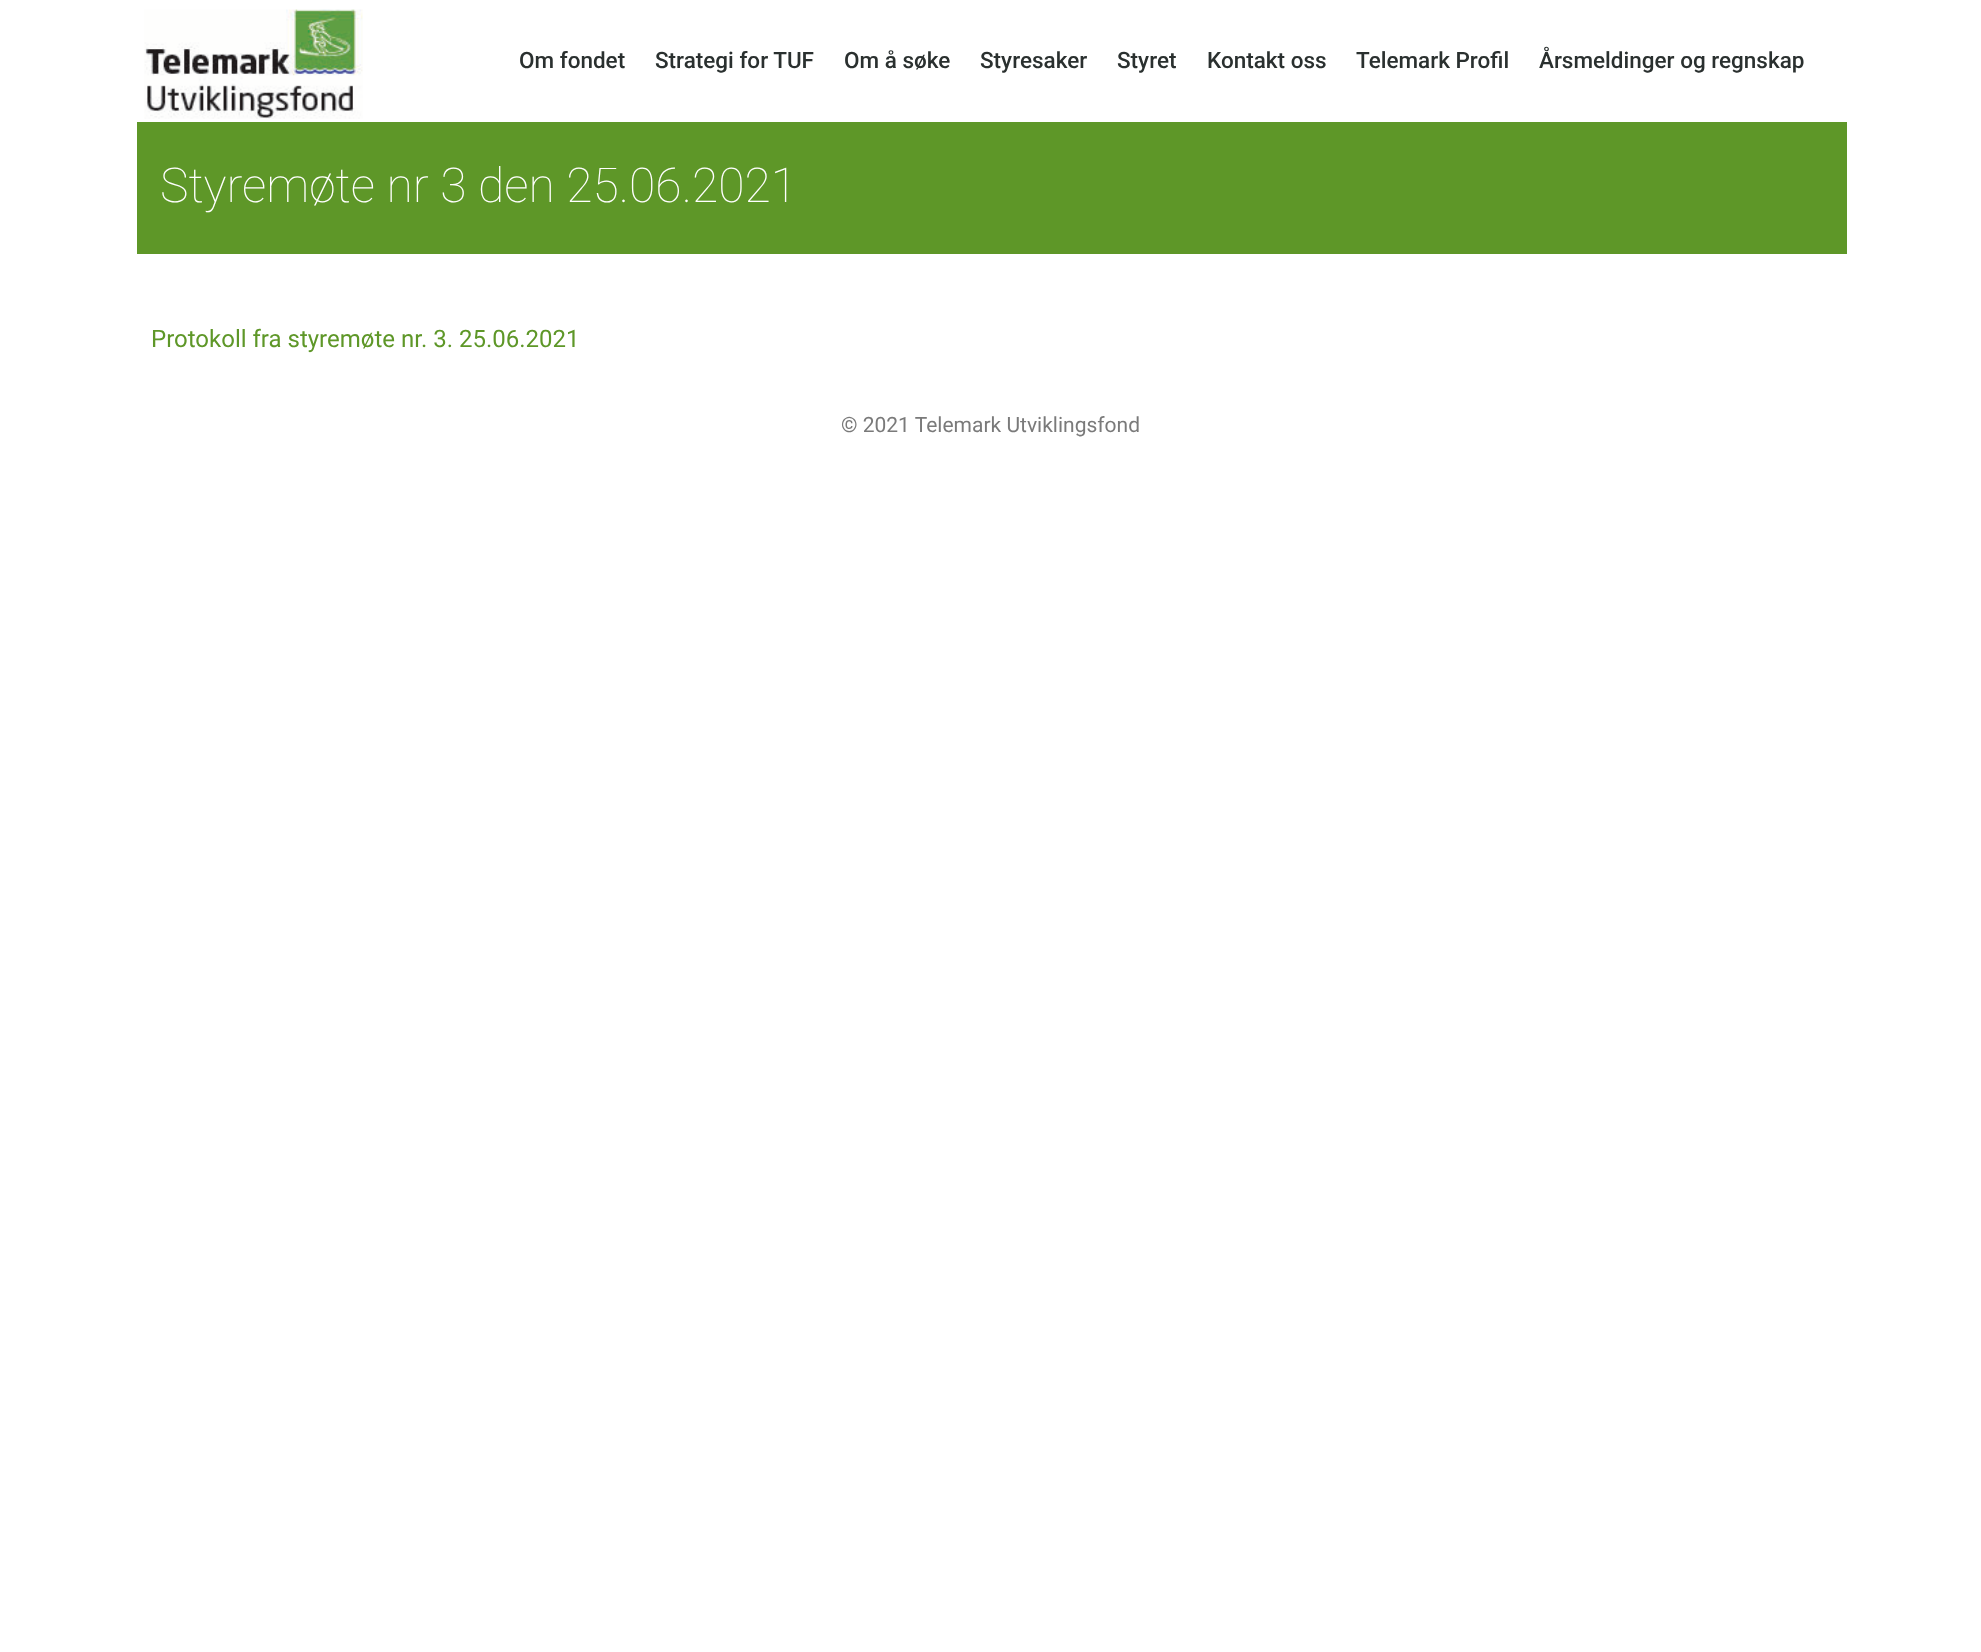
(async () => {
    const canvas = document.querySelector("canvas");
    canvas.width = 1981;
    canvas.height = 1652;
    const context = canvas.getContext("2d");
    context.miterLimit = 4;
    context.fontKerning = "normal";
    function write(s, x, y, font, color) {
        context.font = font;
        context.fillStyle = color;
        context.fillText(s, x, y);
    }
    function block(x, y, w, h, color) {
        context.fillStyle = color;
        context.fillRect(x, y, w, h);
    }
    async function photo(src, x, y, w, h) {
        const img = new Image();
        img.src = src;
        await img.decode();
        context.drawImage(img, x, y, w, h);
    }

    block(0, 0, 1981, 1652, "rgb(255, 255, 255)");
    await photo("media/1.png", 144, 9, 219, 110);
    write("Om fondet", 519, 68, "500 22.5px Roboto", "rgb(42, 48, 47)");
    write("Strategi for TUF", 655, 68, "500 22.5px Roboto", "rgb(42, 48, 47)");
    write("Om å søke", 844, 68, "500 22.5px Roboto", "rgb(42, 48, 47)");
    write("Styresaker", 980, 68, "500 22.5px Roboto", "rgb(42, 48, 47)");
    write("Styret", 1117, 68, "500 22.5px Roboto", "rgb(42, 48, 47)");
    write("Kontakt oss", 1207, 68, "500 22.5px Roboto", "rgb(42, 48, 47)");
    write("Telemark Profil", 1356, 68, "500 22.5px Roboto", "rgb(42, 48, 47)");
    write("Årsmeldinger og regnskap", 1539, 68, "500 22.5px Roboto", "rgb(42, 48, 47)");
    block(137, 122, 1710, 132, "rgb(94, 151, 40)");
    write("Styremøte nr 3 den 25.06.2021", 160, 202, "100 48px Roboto", "rgb(255, 255, 255)");
    write("Protokoll fra styremøte nr. 3. 25.06.2021", 151, 347, "24px Roboto", "rgb(94, 151, 40)");
    write("© 2021 Telemark Utviklingsfond", 841, 432, "21px Roboto", "rgb(122, 122, 122)");
})();
